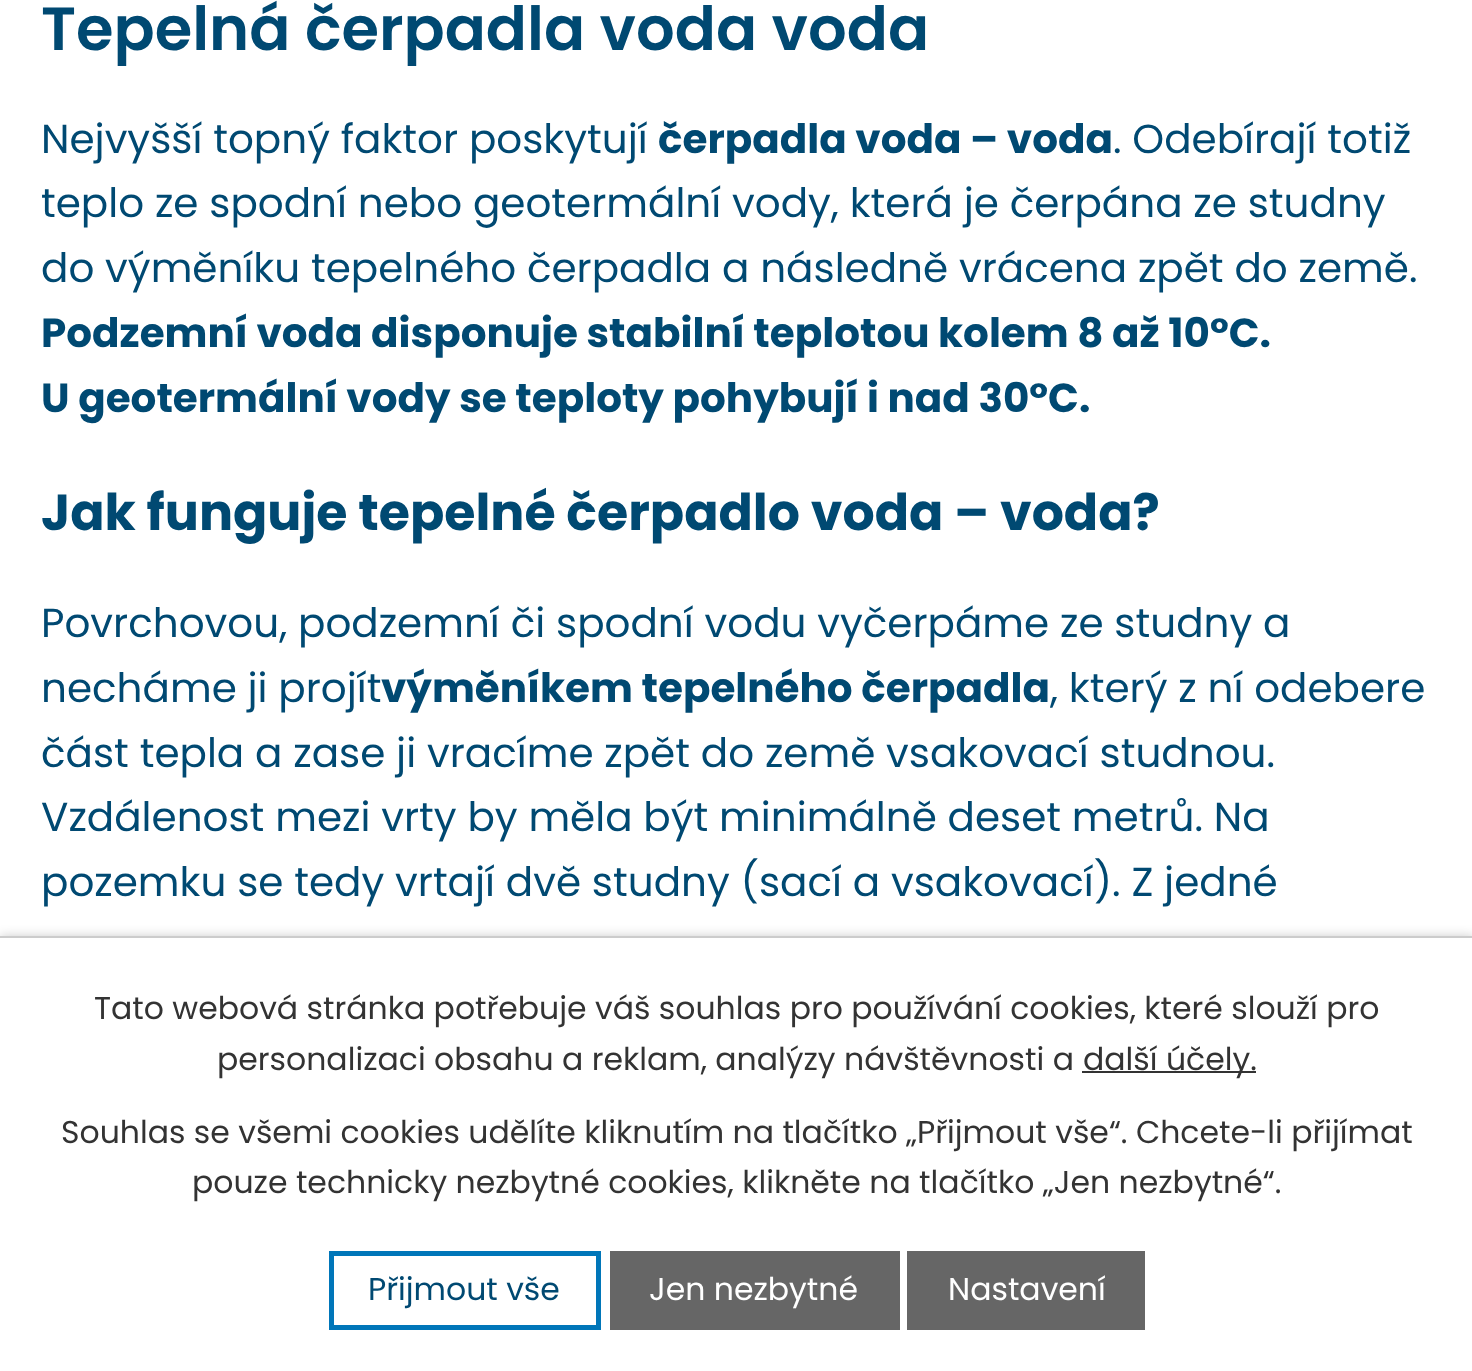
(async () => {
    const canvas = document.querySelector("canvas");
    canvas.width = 1472;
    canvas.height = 1371;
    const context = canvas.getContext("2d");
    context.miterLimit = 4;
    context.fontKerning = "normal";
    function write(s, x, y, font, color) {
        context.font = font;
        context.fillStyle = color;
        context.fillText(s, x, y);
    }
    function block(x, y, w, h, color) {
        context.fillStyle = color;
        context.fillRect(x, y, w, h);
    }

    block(0, 0, 1472, 1371, "rgb(255, 255, 255)");
    write("Tepelná čerpadla voda voda", 41, 50, "600 60.75px Poppins", "rgb(0, 73, 114)");
    write("Nejvyšší topný faktor poskytují", 41, 153, "40.5px Poppins", "rgb(0, 73, 114)");
    write("čerpadla voda – voda", 658, 153, "bold 40.5px Poppins", "rgb(0, 73, 114)");
    write(". Odebírají totiž", 1113, 153, "40.5px Poppins", "rgb(0, 73, 114)");
    write("teplo ze spodní nebo geotermální vody, která je čerpána ze studny", 41, 217, "40.5px Poppins", "rgb(0, 73, 114)");
    write("do výměníku tepelného čerpadla a následně vrácena zpět do země.", 41, 282, "40.5px Poppins", "rgb(0, 73, 114)");
    write("Podzemní voda disponuje stabilní teplotou kolem 8 až 10°C.", 41, 347, "bold 40.5px Poppins", "rgb(0, 73, 114)");
    write("U geotermální vody se teploty pohybují i nad 30°C.", 41, 412, "bold 40.5px Poppins", "rgb(0, 73, 114)");
    write("Jak funguje tepelné čerpadlo voda – voda?", 41, 530, "bold 50.6px Poppins", "rgb(0, 73, 114)");
    write("Povrchovou, podzemní či spodní vodu vyčerpáme ze studny a", 41, 637, "40.5px Poppins", "rgb(0, 73, 114)");
    write("necháme ji projít", 41, 702, "40.5px Poppins", "rgb(0, 73, 114)");
    write("výměníkem tepelného čerpadla", 381, 702, "bold 40.5px Poppins", "rgb(0, 73, 114)");
    write(", který z ní odebere", 1050, 702, "40.5px Poppins", "rgb(0, 73, 114)");
    write("část tepla a zase ji vracíme zpět do země vsakovací studnou.", 41, 767, "40.5px Poppins", "rgb(0, 73, 114)");
    write("Vzdálenost mezi vrty by měla být minimálně deset metrů. Na", 41, 831, "40.5px Poppins", "rgb(0, 73, 114)");
    write("pozemku se tedy vrtají dvě studny (sací a vsakovací). Z jedné", 41, 896, "40.5px Poppins", "rgb(0, 73, 114)");
    context.fillStyle = "rgba(0, 0, 0, 0.2)";
    context.filter = "blur(5.5px)";
    context.beginPath();
    context.rect(0, 936, 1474, 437);
    context.fill();
    context.filter = "none";
    block(0, 938, 1472, 433, "rgb(255, 255, 255)");
    block(0, 936, 1472, 2, "rgb(204, 204, 204)");
    write("Tato webová stránka potřebuje váš souhlas pro používání cookies, které slouží pro", 94, 1019, "31.5px Poppins", "rgb(51, 51, 51)");
    write("personalizaci obsahu a reklam, analýzy návštěvnosti a", 217, 1070, "31.5px Poppins", "rgb(51, 51, 51)");
    block(1082, 1071, 174, 2, "rgb(51, 51, 51)");
    write("další účely.", 1083, 1070, "31.5px Poppins", "rgb(51, 51, 51)");
    write("Souhlas se všemi cookies udělíte kliknutím na tlačítko „Přijmout vše“. Chcete-li přijímat", 61, 1143, "31.5px Poppins", "rgb(51, 51, 51)");
    write("pouze technicky nezbytné cookies, klikněte na tlačítko „Jen nezbytné“.", 192, 1193, "31.5px Poppins", "rgb(51, 51, 51)");
    context.strokeStyle = "rgb(0, 118, 185)";
    context.lineWidth = 5;
    context.strokeRect(331.5, 1253.5, 267, 74);
    write("Přijmout vše", 368, 1300, "31.5px Poppins", "rgb(0, 73, 114)");
    block(610, 1251, 290, 79, "rgb(102, 102, 102)");
    write("Jen nezbytné", 649, 1300, "31.5px Poppins", "rgb(255, 255, 255)");
    block(907, 1251, 238, 79, "rgb(102, 102, 102)");
    write("Nastavení", 948, 1300, "31.5px Poppins", "rgb(255, 255, 255)");
})();
